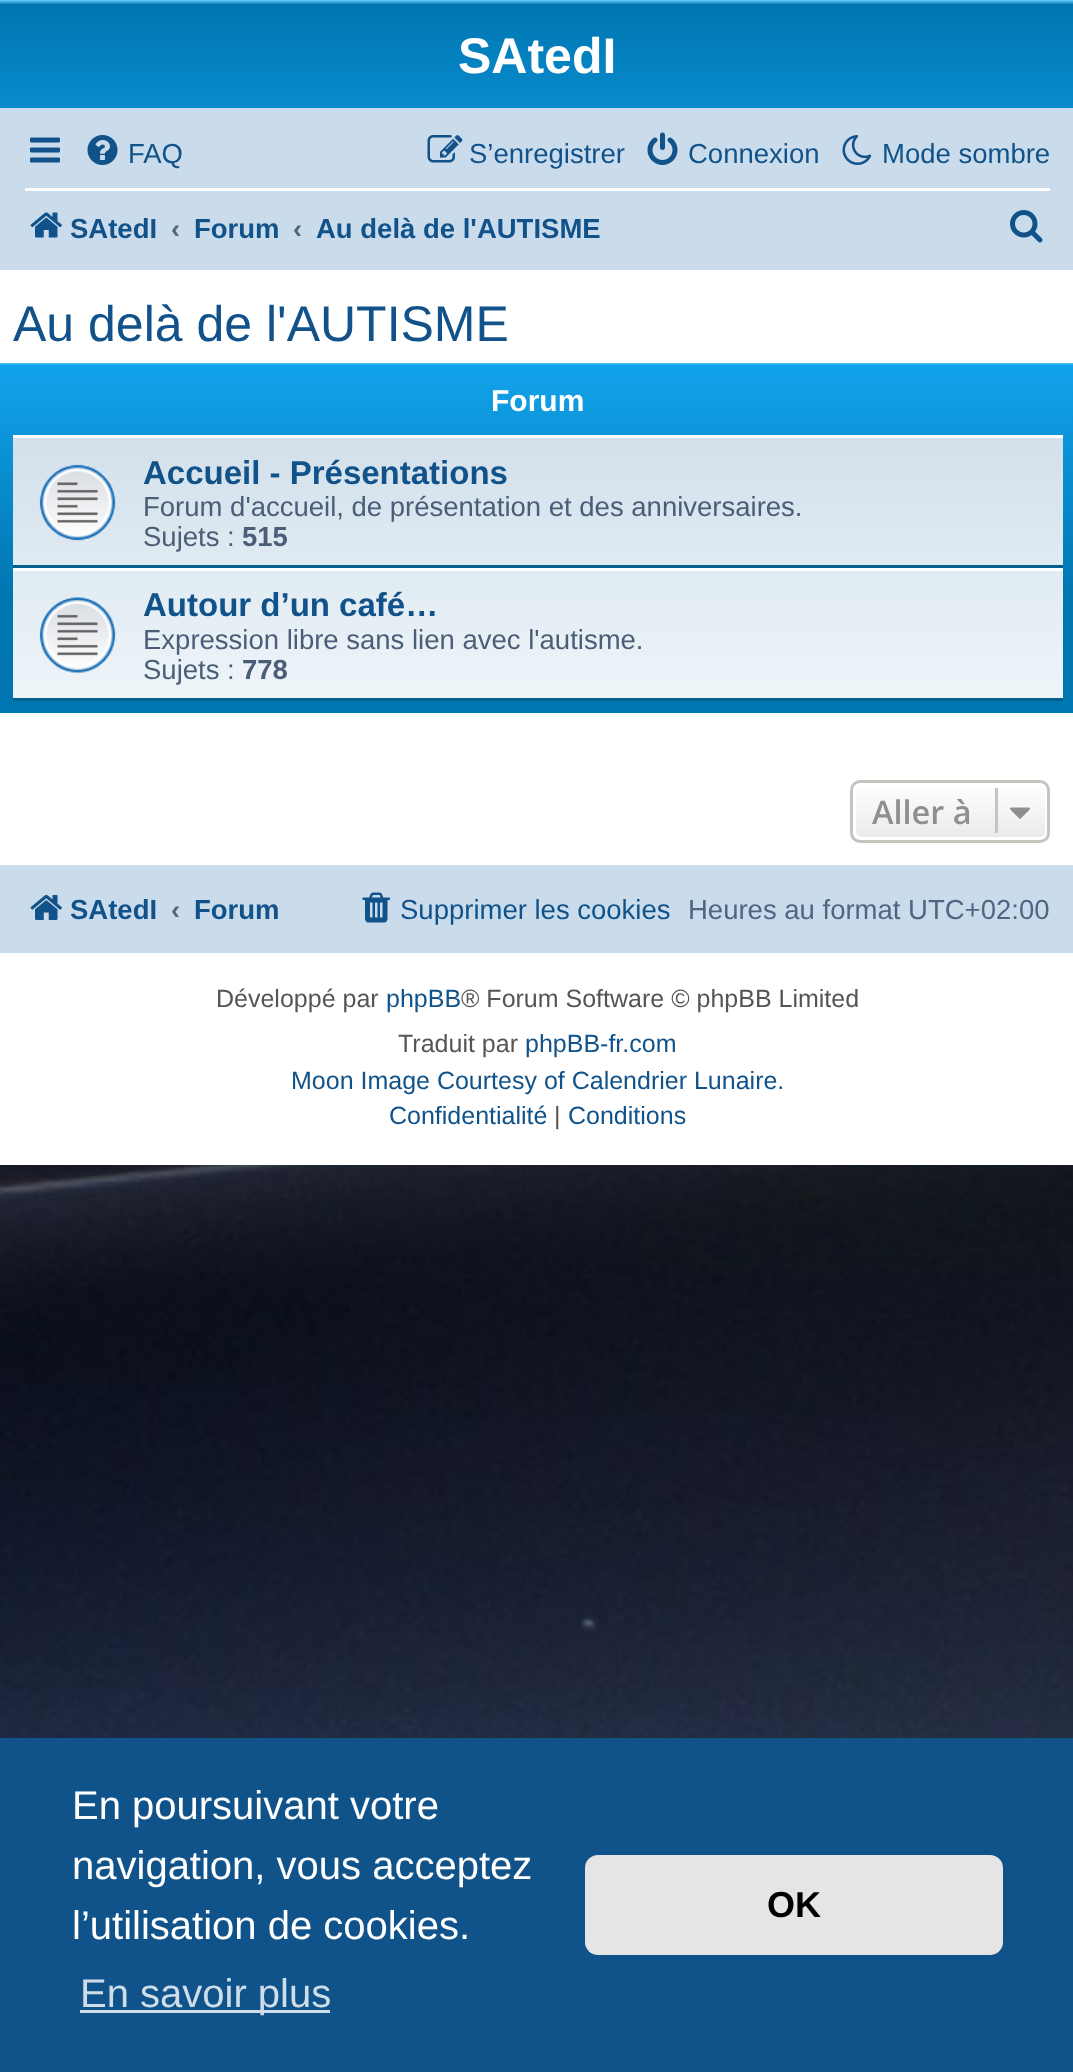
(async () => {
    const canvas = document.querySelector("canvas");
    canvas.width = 1073;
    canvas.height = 2072;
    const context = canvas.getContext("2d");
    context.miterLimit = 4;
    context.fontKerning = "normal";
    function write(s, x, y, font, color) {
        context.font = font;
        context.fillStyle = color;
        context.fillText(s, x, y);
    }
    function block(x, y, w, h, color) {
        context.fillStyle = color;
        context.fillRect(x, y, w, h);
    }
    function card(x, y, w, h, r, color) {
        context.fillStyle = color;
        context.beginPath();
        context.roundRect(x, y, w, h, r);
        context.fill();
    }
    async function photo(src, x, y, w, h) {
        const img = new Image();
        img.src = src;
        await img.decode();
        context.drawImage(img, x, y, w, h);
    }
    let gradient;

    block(0, 0, 1073, 2072, "rgb(255, 255, 255)");
    await photo("media/1.png", 0, 1165, 1073, 573);
    gradient = context.createLinearGradient(538, 0, 538, 230);
    gradient.addColorStop(0, "rgb(106, 206, 255)");
    gradient.addColorStop(0.02, "rgb(0, 118, 177)");
    gradient.addColorStop(1, "rgb(18, 163, 235)");
    context.fillStyle = gradient;
    context.fillRect(0, 0, 1073, 108);
    write("SAtedI", 458, 73, "bold 50px Liberation Sans", "rgb(255, 255, 255)");
    block(0, 108, 1073, 162, "rgb(202, 220, 235)");
    await photo("media/2.png", 30, 137, 30, 26);
    await photo("media/3.png", 87, 135, 31, 30);
    write("FAQ", 128, 163, "27.5px Liberation Sans", "rgb(16, 82, 137)");
    await photo("media/4.png", 427, 135, 36, 28);
    write("S’enregistrer", 469, 163, "27.5px Liberation Sans", "rgb(16, 82, 137)");
    await photo("media/5.png", 647, 132, 31, 33);
    write("Connexion", 688, 163, "27.5px Liberation Sans", "rgb(16, 82, 137)");
    await photo("media/6.png", 842, 135, 30, 30);
    write("Mode sombre", 882, 163, "27.5px Liberation Sans", "rgb(16, 82, 137)");
    block(25, 188, 1025, 3, "rgb(255, 255, 255)");
    await photo("media/7.png", 30, 212, 32, 26);
    write("SAtedI", 70, 238, "bold 27.5px Liberation Sans", "rgb(16, 82, 137)");
    write("‹", 171, 238, "bold 27.5px Liberation Sans", "rgb(83, 100, 130)");
    write("Forum", 194, 238, "bold 27.5px Liberation Sans", "rgb(16, 82, 137)");
    write("‹", 293, 238, "bold 27.5px Liberation Sans", "rgb(83, 100, 130)");
    write("Au delà de l'AUTISME", 316, 238, "bold 27.5px Liberation Sans", "rgb(16, 82, 137)");
    await photo("media/8.png", 1010, 210, 33, 33);
    write("Au delà de l'AUTISME", 13, 341, "50px Liberation Sans", "rgb(16, 82, 137)");
    gradient = context.createLinearGradient(538, 362, 538, 713);
    gradient.addColorStop(0, "rgb(106, 206, 255)");
    gradient.addColorStop(0.01, "rgb(18, 163, 235)");
    gradient.addColorStop(0.66, "rgb(0, 118, 177)");
    gradient.addColorStop(1, "rgb(0, 118, 177)");
    context.fillStyle = gradient;
    context.fillRect(0, 363, 1073, 350);
    write("Forum", 491, 411, "bold 30px Liberation Sans", "rgb(255, 255, 255)");
    gradient = context.createLinearGradient(538, 435, 538, 700);
    gradient.addColorStop(0, "rgb(210, 224, 235)");
    gradient.addColorStop(1, "rgb(238, 245, 249)");
    context.fillStyle = gradient;
    context.fillRect(13, 438, 1050, 260);
    block(13, 435, 1050, 3, "rgb(255, 255, 255)");
    block(13, 565, 1050, 3, "rgb(0, 96, 143)");
    await photo("media/9.png", 39, 464, 77, 77);
    write("Accueil - Présentations", 143, 484, "bold 33px Liberation Sans", "rgb(16, 82, 137)");
    write("Forum d'accueil, de présentation et des anniversaires.", 143, 516, "27.5px Liberation Sans", "rgb(76, 93, 119)");
    write("Sujets :", 143, 546, "27.5px Liberation Sans", "rgb(76, 93, 119)");
    write("515", 242, 546, "bold 27.5px Liberation Sans", "rgb(76, 93, 119)");
    block(13, 568, 1050, 3, "rgb(255, 255, 255)");
    block(13, 698, 1050, 3, "rgb(0, 96, 143)");
    await photo("media/10.png", 39, 597, 77, 76);
    write("Autour d’un café…", 143, 616, "bold 33px Liberation Sans", "rgb(16, 82, 137)");
    write("Expression libre sans lien avec l'autisme.", 143, 649, "27.5px Liberation Sans", "rgb(76, 93, 119)");
    write("Sujets :", 143, 679, "27.5px Liberation Sans", "rgb(76, 93, 119)");
    write("778", 242, 679, "bold 27.5px Liberation Sans", "rgb(76, 93, 119)");
    context.save();
    context.beginPath();
    context.roundRect(850, 780, 200, 63, 10);
    context.clip();
    gradient = context.createLinearGradient(950, 783, 950, 840);
    gradient.addColorStop(0, "rgb(255, 255, 255)");
    gradient.addColorStop(1, "rgb(233, 233, 233)");
    context.fillStyle = gradient;
    context.fillRect(850, 783, 200, 57);
    context.restore();
    context.beginPath();
    context.roundRect(854.5, 784.5, 192, 54, 6.5);
    context.strokeStyle = "rgb(255, 255, 255)";
    context.lineWidth = 3;
    context.stroke();
    context.beginPath();
    context.roundRect(851.5, 781.5, 197, 60, 8.5);
    context.strokeStyle = "rgb(199, 195, 191)";
    context.stroke();
    write("Aller à", 872, 824, "600 32.5px Open Sans", "rgb(143, 143, 143)");
    block(995, 788, 3, 45, "rgb(199, 195, 191)");
    await photo("media/11.png", 1010, 807, 20, 12);
    block(0, 865, 1073, 88, "rgb(202, 220, 235)");
    await photo("media/12.png", 30, 894, 32, 26);
    write("SAtedI", 70, 919, "bold 27.5px Liberation Sans", "rgb(16, 82, 137)");
    write("‹", 171, 919, "bold 27.5px Liberation Sans", "rgb(83, 100, 130)");
    write("Forum", 194, 919, "bold 27.5px Liberation Sans", "rgb(16, 82, 137)");
    await photo("media/13.png", 362, 892, 28, 31);
    write("Supprimer les cookies", 400, 919, "27.5px Liberation Sans", "rgb(16, 82, 137)");
    write("Heures au format UTC+02:00", 688, 919, "27.5px Liberation Sans", "rgb(83, 100, 130)");
    write("Développé par", 216, 1007, "25px Liberation Sans", "rgb(85, 85, 85)");
    write("phpBB", 386, 1007, "25px Liberation Sans", "rgb(16, 82, 137)");
    write("® Forum Software © phpBB Limited", 461, 1007, "25px Liberation Sans", "rgb(85, 85, 85)");
    write("Traduit par", 398, 1052, "25px Liberation Sans", "rgb(85, 85, 85)");
    write("phpBB-fr.com", 525, 1052, "25px Liberation Sans", "rgb(16, 82, 137)");
    write("Moon Image Courtesy of Calendrier Lunaire.", 291, 1089, "25px Liberation Sans", "rgb(16, 82, 137)");
    write("Confidentialité", 389, 1124, "25px Liberation Sans", "rgb(16, 82, 137)");
    write("|", 554, 1124, "25px Liberation Sans", "rgb(85, 85, 85)");
    write("Conditions", 568, 1124, "25px Liberation Sans", "rgb(16, 82, 137)");
    block(0, 1738, 1073, 334, "rgb(15, 83, 138)");
    write("En poursuivant votre", 72, 1819, "40px Liberation Sans", "rgb(255, 255, 255)");
    write("navigation, vous acceptez", 72, 1879, "40px Liberation Sans", "rgb(255, 255, 255)");
    write("l’utilisation de cookies.", 72, 1939, "40px Liberation Sans", "rgb(255, 255, 255)");
    block(80, 2010, 250, 3, "rgb(207, 221, 232)");
    write("En savoir plus", 80, 2007, "40px Liberation Sans", "rgb(207, 221, 232)");
    card(585, 1855, 418, 100, 13, "rgb(229, 229, 229)");
    write("OK", 767, 1917, "bold 36px Liberation Sans", "rgb(0, 0, 0)");
})();
